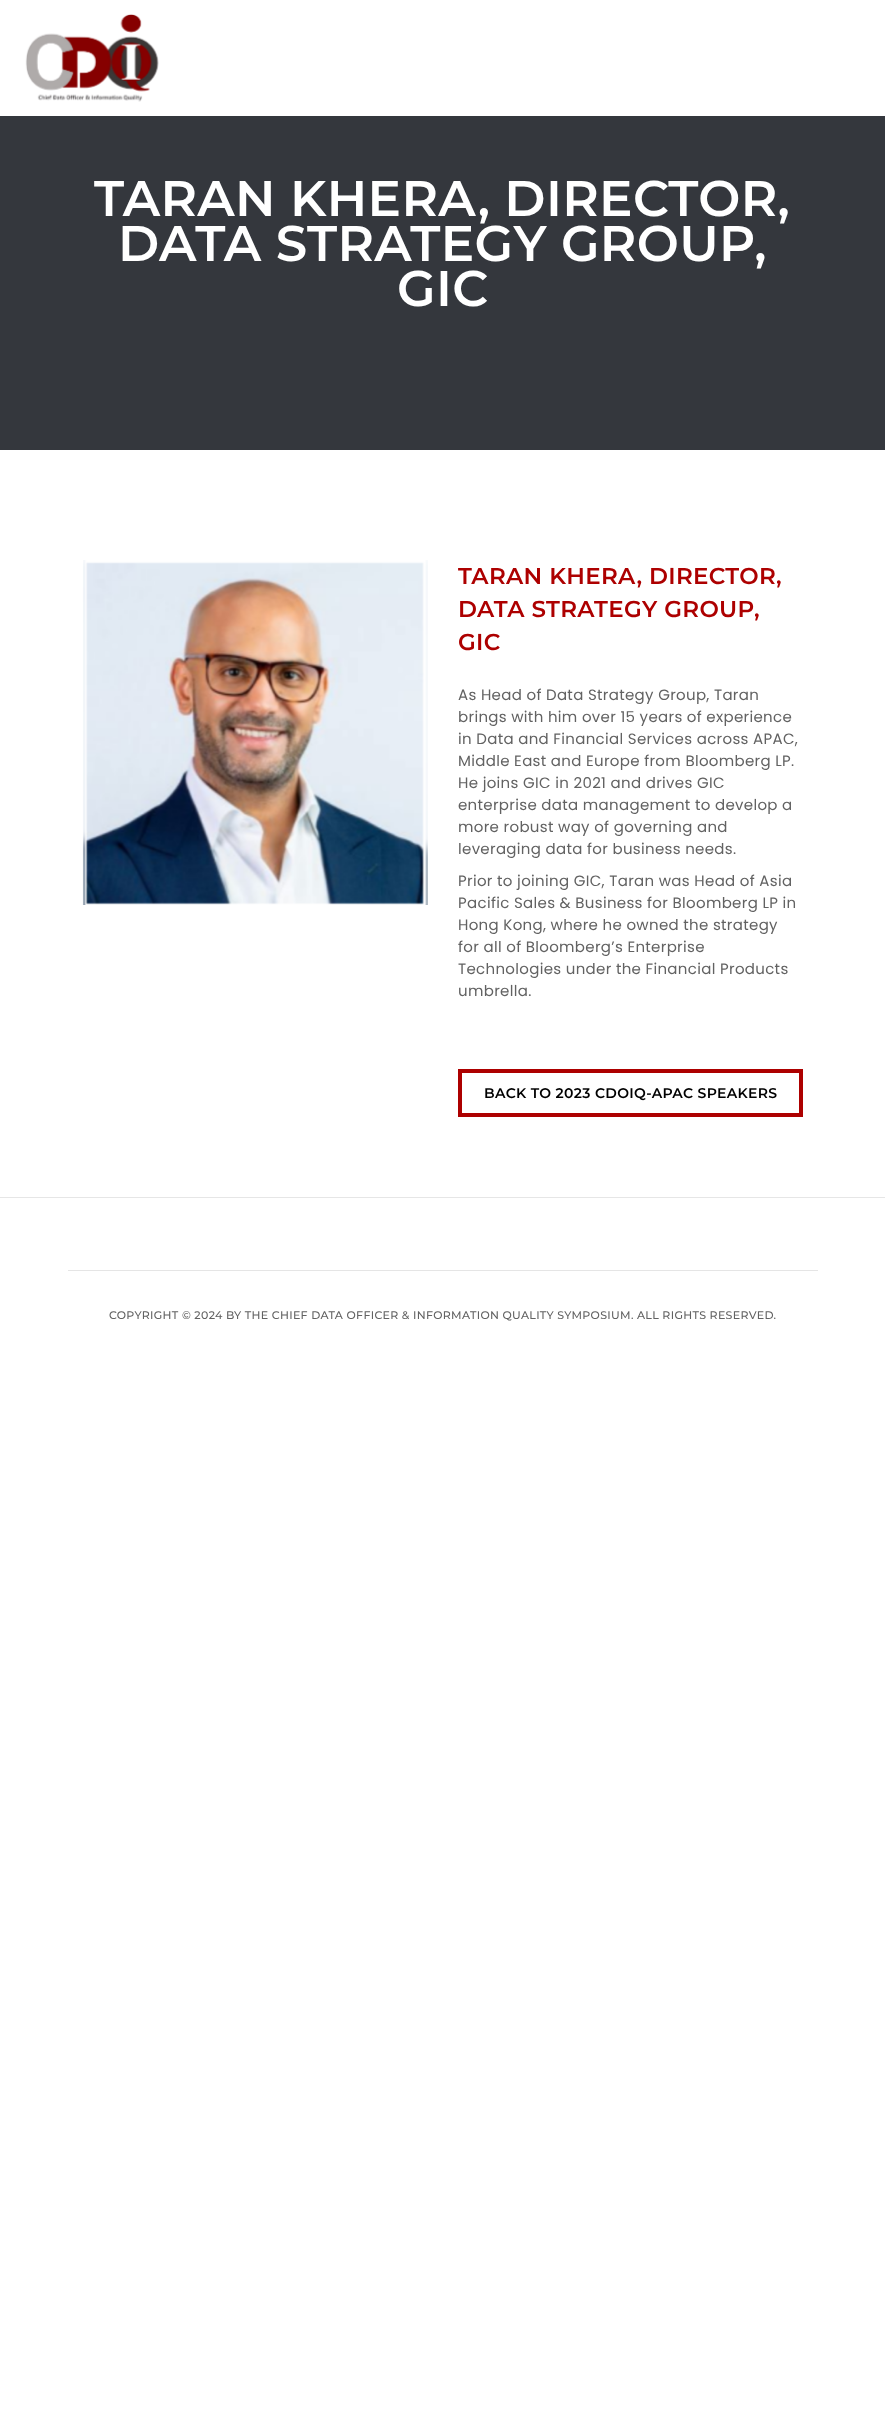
(async () => {
    const canvas = document.querySelector("canvas");
    canvas.width = 885;
    canvas.height = 2413;
    const context = canvas.getContext("2d");
    context.miterLimit = 4;
    context.fontKerning = "normal";
    function write(s, x, y, font, color) {
        context.font = font;
        context.fillStyle = color;
        context.fillText(s, x, y);
    }
    function block(x, y, w, h, color) {
        context.fillStyle = color;
        context.fillRect(x, y, w, h);
    }
    async function photo(src, x, y, w, h) {
        const img = new Image();
        img.src = src;
        await img.decode();
        context.drawImage(img, x, y, w, h);
    }

    block(0, 0, 885, 2413, "rgb(255, 255, 255)");
    await photo("media/1.png", 25, 14, 134, 88);
    block(0, 116, 885, 334, "rgb(52, 55, 61)");
    context.letterSpacing = "0.32px";
    write("TARAN KHERA, DIRECTOR,", 94, 216, "600 50px Montserrat", "rgb(255, 255, 255)");
    write("DATA STRATEGY GROUP,", 118, 261, "600 50px Montserrat", "rgb(255, 255, 255)");
    write("GIC", 397, 306, "600 50px Montserrat", "rgb(255, 255, 255)");
    await photo("media/2.png", 82, 560, 346, 345);
    write("TARAN KHERA, DIRECTOR,", 458, 584, "600 23px Montserrat", "rgb(173, 0, 0)");
    write("DATA STRATEGY GROUP,", 458, 617, "600 23px Montserrat", "rgb(173, 0, 0)");
    write("GIC", 458, 650, "600 23px Montserrat", "rgb(173, 0, 0)");
    write("As Head of Data Strategy Group, Taran", 458, 700, "15px Poppins", "rgb(98, 98, 98)");
    write("brings with him over 15 years of experience", 458, 722, "15px Poppins", "rgb(98, 98, 98)");
    write("in Data and Financial Services across APAC,", 458, 744, "15px Poppins", "rgb(98, 98, 98)");
    write("Middle East and Europe from Bloomberg LP.", 458, 766, "15px Poppins", "rgb(98, 98, 98)");
    write("He joins GIC in 2021 and drives GIC", 458, 788, "15px Poppins", "rgb(98, 98, 98)");
    write("enterprise data management to develop a", 458, 810, "15px Poppins", "rgb(98, 98, 98)");
    write("more robust way of governing and", 458, 832, "15px Poppins", "rgb(98, 98, 98)");
    write("leveraging data for business needs.", 458, 854, "15px Poppins", "rgb(98, 98, 98)");
    write("Prior to joining GIC, Taran was Head of Asia", 458, 886, "15px Poppins", "rgb(98, 98, 98)");
    write("Pacific Sales & Business for Bloomberg LP in", 458, 908, "15px Poppins", "rgb(98, 98, 98)");
    write("Hong Kong, where he owned the strategy", 458, 930, "15px Poppins", "rgb(98, 98, 98)");
    write("for all of Bloomberg’s Enterprise", 458, 952, "15px Poppins", "rgb(98, 98, 98)");
    write("Technologies under the Financial Products", 458, 974, "15px Poppins", "rgb(98, 98, 98)");
    write("umbrella.", 458, 996, "15px Poppins", "rgb(98, 98, 98)");
    context.strokeStyle = "rgb(173, 0, 0)";
    context.lineWidth = 4;
    context.strokeRect(460, 1071, 341, 44);
    write("BACK TO 2023 CDOIQ-APAC SPEAKERS", 484, 1098, "600 14px Montserrat", "rgb(0, 0, 0)");
    block(0, 1197, 885, 1, "rgb(230, 230, 230)");
    block(68, 1270, 750, 1, "rgb(229, 229, 229)");
    write("COPYRIGHT © 2024 BY THE CHIEF DATA OFFICER & INFORMATION QUALITY SYMPOSIUM. ALL RIGHTS RESERVED.", 109, 1319, "500 11px Montserrat", "rgb(98, 98, 98)");
})();
